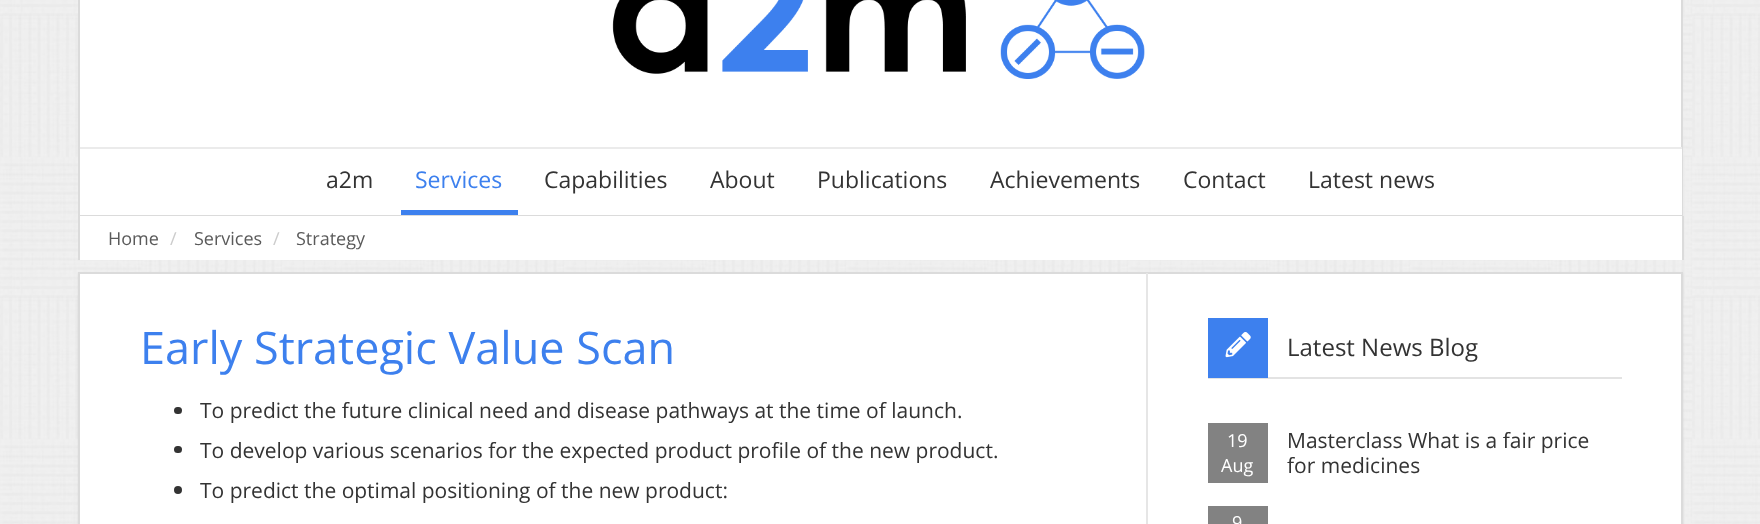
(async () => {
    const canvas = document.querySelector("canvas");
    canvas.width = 1760;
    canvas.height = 524;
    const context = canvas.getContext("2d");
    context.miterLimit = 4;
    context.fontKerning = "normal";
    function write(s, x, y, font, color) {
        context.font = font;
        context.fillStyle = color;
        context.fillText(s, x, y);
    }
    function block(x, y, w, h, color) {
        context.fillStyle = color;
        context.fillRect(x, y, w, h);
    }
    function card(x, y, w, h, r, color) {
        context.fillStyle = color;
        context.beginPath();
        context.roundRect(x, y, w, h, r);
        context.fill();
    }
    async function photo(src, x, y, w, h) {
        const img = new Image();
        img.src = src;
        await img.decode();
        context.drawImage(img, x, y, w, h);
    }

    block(0, 0, 1760, 524, "rgb(255, 255, 255)");
    await photo("media/1.png", 0, 0, 1760, 524);
    block(80, 0, 1601, 147, "rgb(255, 255, 255)");
    context.strokeStyle = "rgb(219, 219, 219)";
    context.lineWidth = 2;
    context.strokeRect(79, -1, 1603, 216);
    await photo("media/2.png", 612, 0, 533, 79);
    block(80, 149, 1602, 66, "rgb(255, 255, 255)");
    block(80, 147, 1602, 2, "rgb(235, 235, 235)");
    write("a2m", 326, 188, "23px Open Sans", "rgb(51, 51, 51)");
    block(401, 210, 117, 5, "rgb(61, 128, 238)");
    write("Services", 415, 188, "23px Open Sans", "rgb(61, 128, 238)");
    write("Capabilities", 544, 188, "23px Open Sans", "rgb(51, 51, 51)");
    write("About", 710, 188, "23px Open Sans", "rgb(51, 51, 51)");
    write("Publications", 817, 188, "23px Open Sans", "rgb(51, 51, 51)");
    write("Achievements", 990, 188, "23px Open Sans", "rgb(51, 51, 51)");
    write("Contact", 1183, 188, "23px Open Sans", "rgb(51, 51, 51)");
    write("Latest news", 1308, 188, "23px Open Sans", "rgb(51, 51, 51)");
    block(80, 216, 1602, 44, "rgb(255, 255, 255)");
    block(1682, 216, 2, 44, "rgb(219, 219, 219)");
    block(78, 216, 2, 44, "rgb(219, 219, 219)");
    write("Home", 108, 245, "18px Open Sans", "rgb(90, 90, 90)");
    write("/", 170, 245, "18px Open Sans", "rgb(204, 204, 204)");
    write("Services", 194, 245, "18px Open Sans", "rgb(90, 90, 90)");
    write("/", 273, 245, "18px Open Sans", "rgb(204, 204, 204)");
    write("Strategy", 296, 245, "18px Open Sans", "rgb(90, 90, 90)");
    context.fillStyle = "rgba(0, 0, 0, 0.07)";
    context.filter = "blur(1px)";
    context.beginPath();
    context.rect(78, 273, 1605, 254);
    context.fill();
    context.filter = "none";
    context.fillStyle = "rgb(255, 255, 255)";
    context.beginPath();
    context.rect(79, 273, 1603, 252);
    context.fill();
    context.stroke();
    block(1146, 273, 2, 251, "rgb(230, 230, 230)");
    write("Early Strategic Value Scan", 140, 364, "45px Open Sans", "rgb(61, 128, 238)");
    card(174, 407, 8, 7, 3.5, "rgb(51, 51, 51)");
    write("To predict the future clinical need and disease pathways at the time of launch.", 200, 418, "21px Open Sans", "rgb(51, 51, 51)");
    card(174, 446, 8, 7, 3.5, "rgb(51, 51, 51)");
    write("To develop various scenarios for the expected product profile of the new product.", 200, 458, "21px Open Sans", "rgb(51, 51, 51)");
    context.beginPath();
    context.arc(178, 490, 4, 0, Math.PI * 2);
    context.fill();
    write("To predict the optimal positioning of the new product:", 200, 498, "21px Open Sans", "rgb(51, 51, 51)");
    block(1208, 377, 414, 2, "rgb(227, 227, 227)");
    block(1208, 318, 60, 60, "rgb(61, 128, 238)");
    await photo("media/3.png", 1225, 332, 26, 26);
    write("Latest News Blog", 1287, 356, "24px Open Sans", "rgb(51, 51, 51)");
    block(1208, 423, 60, 60, "rgb(130, 130, 130)");
    write("19", 1227, 447, "18px Open Sans", "rgb(255, 255, 255)");
    write("Aug", 1221, 472, "18px Open Sans", "rgb(255, 255, 255)");
    write("Masterclass What is a fair price", 1287, 448, "21px Open Sans", "rgb(51, 51, 51)");
    write("for medicines", 1287, 473, "21px Open Sans", "rgb(51, 51, 51)");
    block(1208, 506, 60, 18, "rgb(130, 130, 130)");
    write("9", 1232, 529, "18px Open Sans", "rgb(255, 255, 255)");
})();
